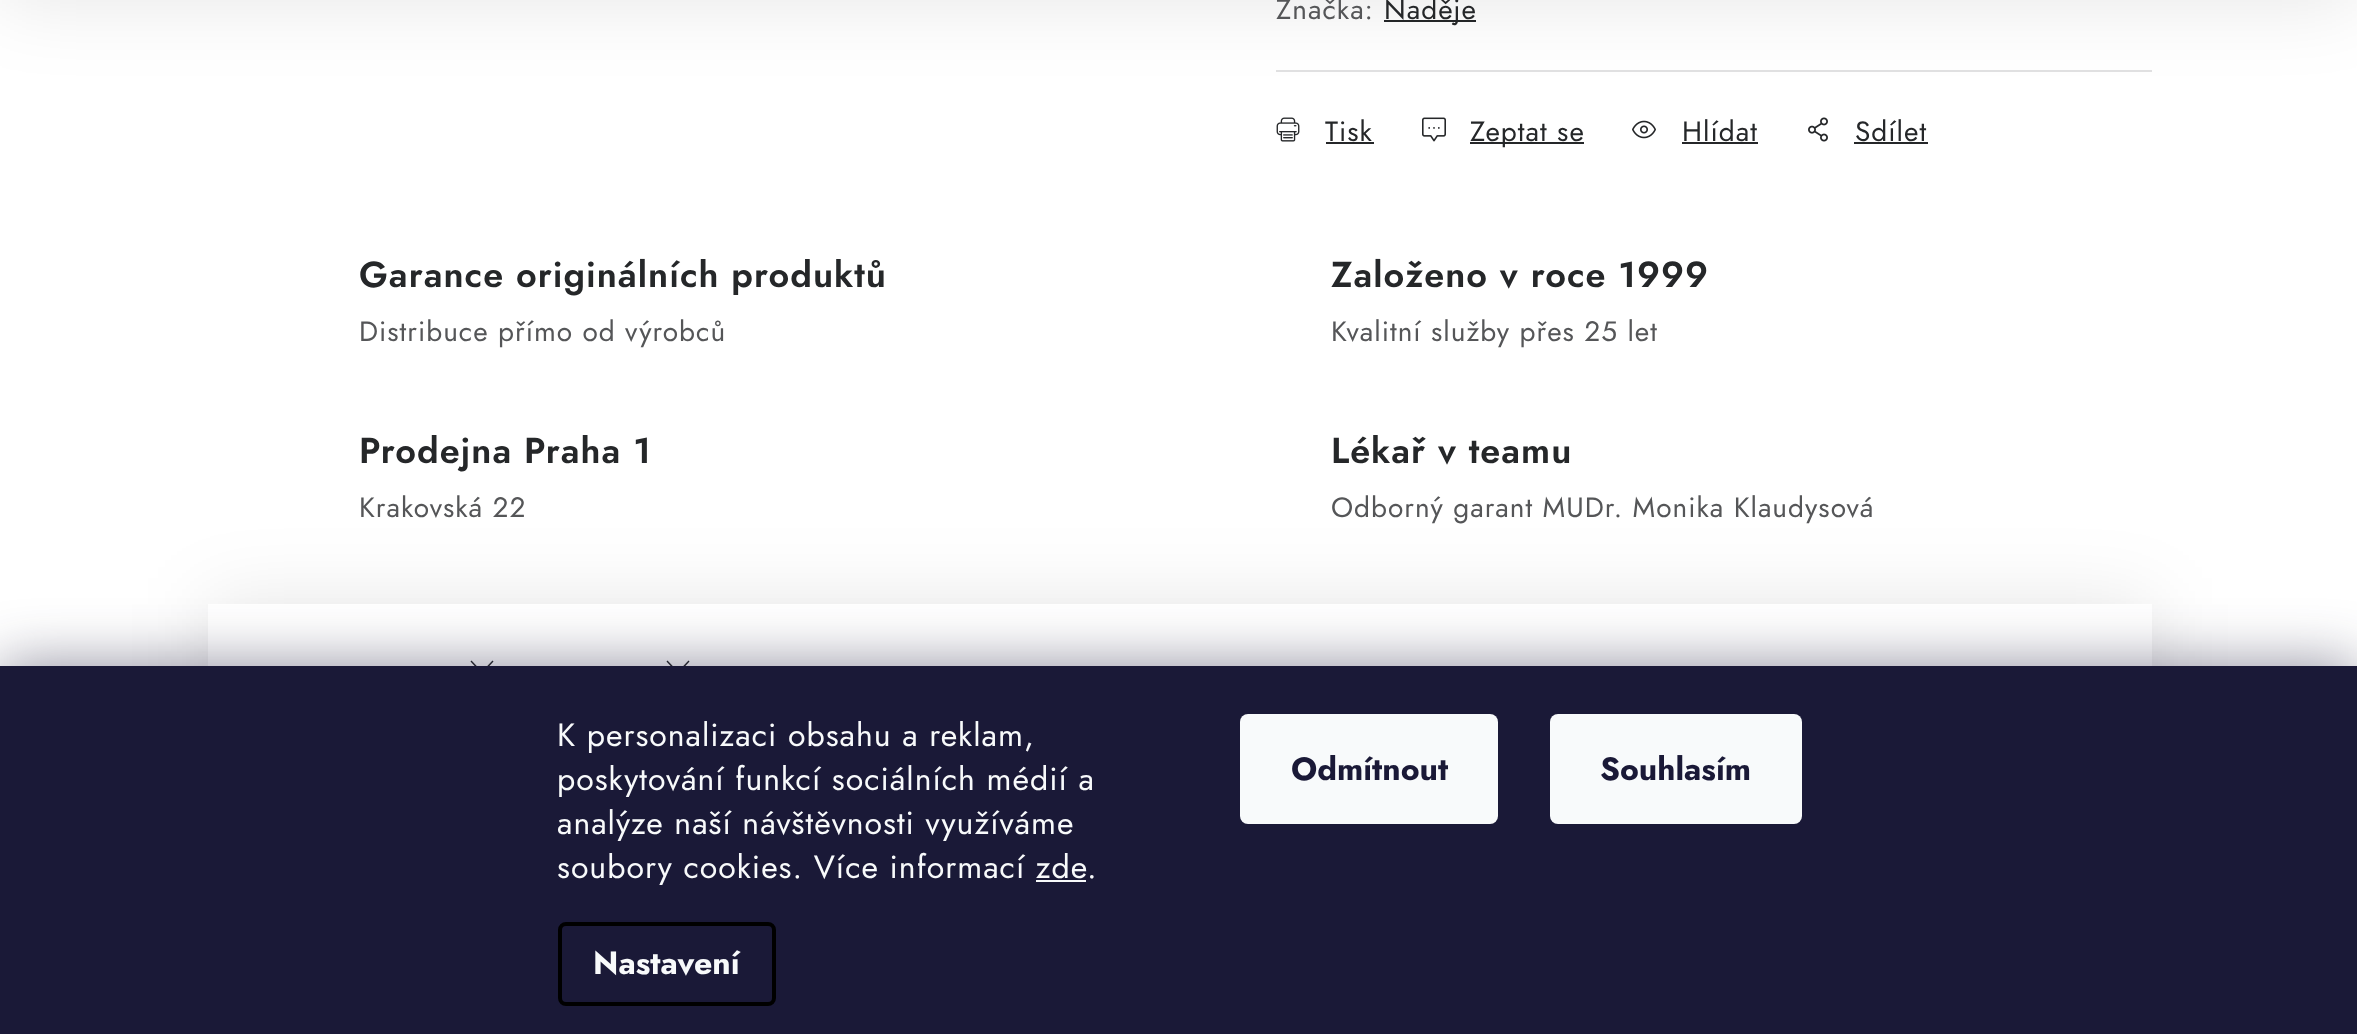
(async () => {
    const canvas = document.querySelector("canvas");
    canvas.width = 2357;
    canvas.height = 1034;
    const context = canvas.getContext("2d");
    context.miterLimit = 4;
    context.fontKerning = "normal";
    function write(s, x, y, font, color) {
        context.font = font;
        context.fillStyle = color;
        context.fillText(s, x, y);
    }
    function block(x, y, w, h, color) {
        context.fillStyle = color;
        context.fillRect(x, y, w, h);
    }
    function card(x, y, w, h, r, color) {
        context.fillStyle = color;
        context.beginPath();
        context.roundRect(x, y, w, h, r);
        context.fill();
    }
    async function photo(src, x, y, w, h) {
        const img = new Image();
        img.src = src;
        await img.decode();
        context.drawImage(img, x, y, w, h);
    }

    block(0, 0, 2357, 1034, "rgb(255, 255, 255)");
    block(1276, 70, 876, 2, "rgb(225, 225, 226)");
    block(1384, 20, 92, 2, "rgb(37, 39, 41)");
    await photo("media/1.png", 1276, 117, 24, 25);
    await photo("media/2.png", 1422, 117, 24, 25);
    await photo("media/3.png", 1632, 120, 24, 19);
    await photo("media/4.png", 1808, 117, 20, 25);
    context.fillStyle = "rgba(0, 0, 0, 0.1)";
    context.filter = "blur(40px)";
    context.beginPath();
    context.rect(0, -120, 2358, 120);
    context.fill();
    context.filter = "none";
    context.letterSpacing = "1px";
    write("Značka:", 1276, 19, "28px Jost", "rgb(85, 86, 88)");
    write("Naděje", 1384, 19, "28px Jost", "rgb(37, 39, 41)");
    write("Tisk", 1325, 141, "28px Jost", "rgb(37, 39, 41)");
    block(1326, 142, 48, 2, "rgb(37, 39, 41)");
    block(1470, 142, 114, 2, "rgb(37, 39, 41)");
    write("Zeptat se", 1470, 141, "28px Jost", "rgb(37, 39, 41)");
    write("Hlídat", 1682, 141, "28px Jost", "rgb(37, 39, 41)");
    block(1682, 142, 76, 2, "rgb(37, 39, 41)");
    write("Sdílet", 1855, 141, "28px Jost", "rgb(37, 39, 41)");
    block(1854, 142, 74, 2, "rgb(37, 39, 41)");
    write("Garance originálních produktů", 359, 287, "600 36px Jost", "rgb(37, 39, 41)");
    write("Distribuce přímo od výrobců", 359, 341, "28px Jost", "rgb(85, 86, 88)");
    write("Založeno v roce 1999", 1331, 287, "600 36px Jost", "rgb(37, 39, 41)");
    write("Kvalitní služby přes 25 let", 1331, 341, "28px Jost", "rgb(85, 86, 88)");
    write("Prodejna Praha 1", 359, 463, "600 36px Jost", "rgb(37, 39, 41)");
    write("Krakovská 22", 359, 517, "28px Jost", "rgb(85, 86, 88)");
    write("Lékař v teamu", 1331, 463, "600 36px Jost", "rgb(37, 39, 41)");
    write("Odborný garant MUDr. Monika Klaudysová", 1331, 517, "28px Jost", "rgb(85, 86, 88)");
    context.save();
    context.beginPath();
    context.moveTo(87, 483);
    context.lineTo(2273, 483);
    context.lineTo(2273, 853);
    context.lineTo(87, 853);
    context.closePath();
    context.moveTo(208, 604);
    context.lineTo(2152, 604);
    context.lineTo(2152, 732);
    context.lineTo(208, 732);
    context.closePath();
    context.clip("evenodd");
    context.fillStyle = "rgba(0, 0, 0, 0.1)";
    context.filter = "blur(40px)";
    context.beginPath();
    context.rect(208, 604, 1944, 128);
    context.fill();
    context.filter = "none";
    context.restore();
    context.fillStyle = "rgb(37, 39, 41)";
    context.beginPath();
    context.moveTo(471.5, 660.5);
    context.lineTo(482, 671.5);
    context.lineTo(492.5, 660.5);
    context.lineTo(493.5, 661.5);
    context.lineTo(482, 674);
    context.lineTo(470.5, 661.5);
    context.closePath();
    context.fill();
    context.beginPath();
    context.moveTo(667.5, 660.5);
    context.lineTo(678, 671.5);
    context.lineTo(688.5, 660.5);
    context.lineTo(689.5, 661.5);
    context.lineTo(678, 674);
    context.lineTo(666.5, 661.5);
    context.closePath();
    context.fill();
    context.fillStyle = "rgba(27, 25, 57, 0.5)";
    context.filter = "blur(30px)";
    context.beginPath();
    context.rect(0, 666, 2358, 368);
    context.fill();
    context.filter = "none";
    block(0, 666, 2357, 368, "rgb(26, 25, 55)");
    write("K personalizaci obsahu a reklam,", 557, 746, "32px Jost", "rgb(248, 250, 251)");
    write("poskytování funkcí sociálních médií a", 557, 790, "32px Jost", "rgb(248, 250, 251)");
    write("analýze naší návštěvnosti využíváme", 557, 834, "32px Jost", "rgb(248, 250, 251)");
    write("soubory cookies. Více informací zde", 557, 878, "32px Jost", "rgb(248, 250, 251)");
    write(".", 1087, 878, "32px Jost", "rgb(248, 250, 251)");
    block(1036, 880, 50, 2, "rgb(248, 250, 251)");
    context.beginPath();
    context.roundRect(560, 924, 214, 80, 6);
    context.strokeStyle = "rgb(0, 0, 0)";
    context.lineWidth = 4;
    context.stroke();
    context.letterSpacing = "0px";
    write("Nastavení", 593, 974, "bold 32px Jost", "rgb(248, 250, 251)");
    card(1240, 714, 258, 110, 8, "rgb(248, 250, 251)");
    write("Odmítnout", 1291, 780, "bold 32px Jost", "rgb(26, 25, 55)");
    card(1550, 714, 252, 110, 8, "rgb(248, 250, 251)");
    write("Souhlasím", 1600, 780, "bold 32px Jost", "rgb(26, 25, 55)");
})();
